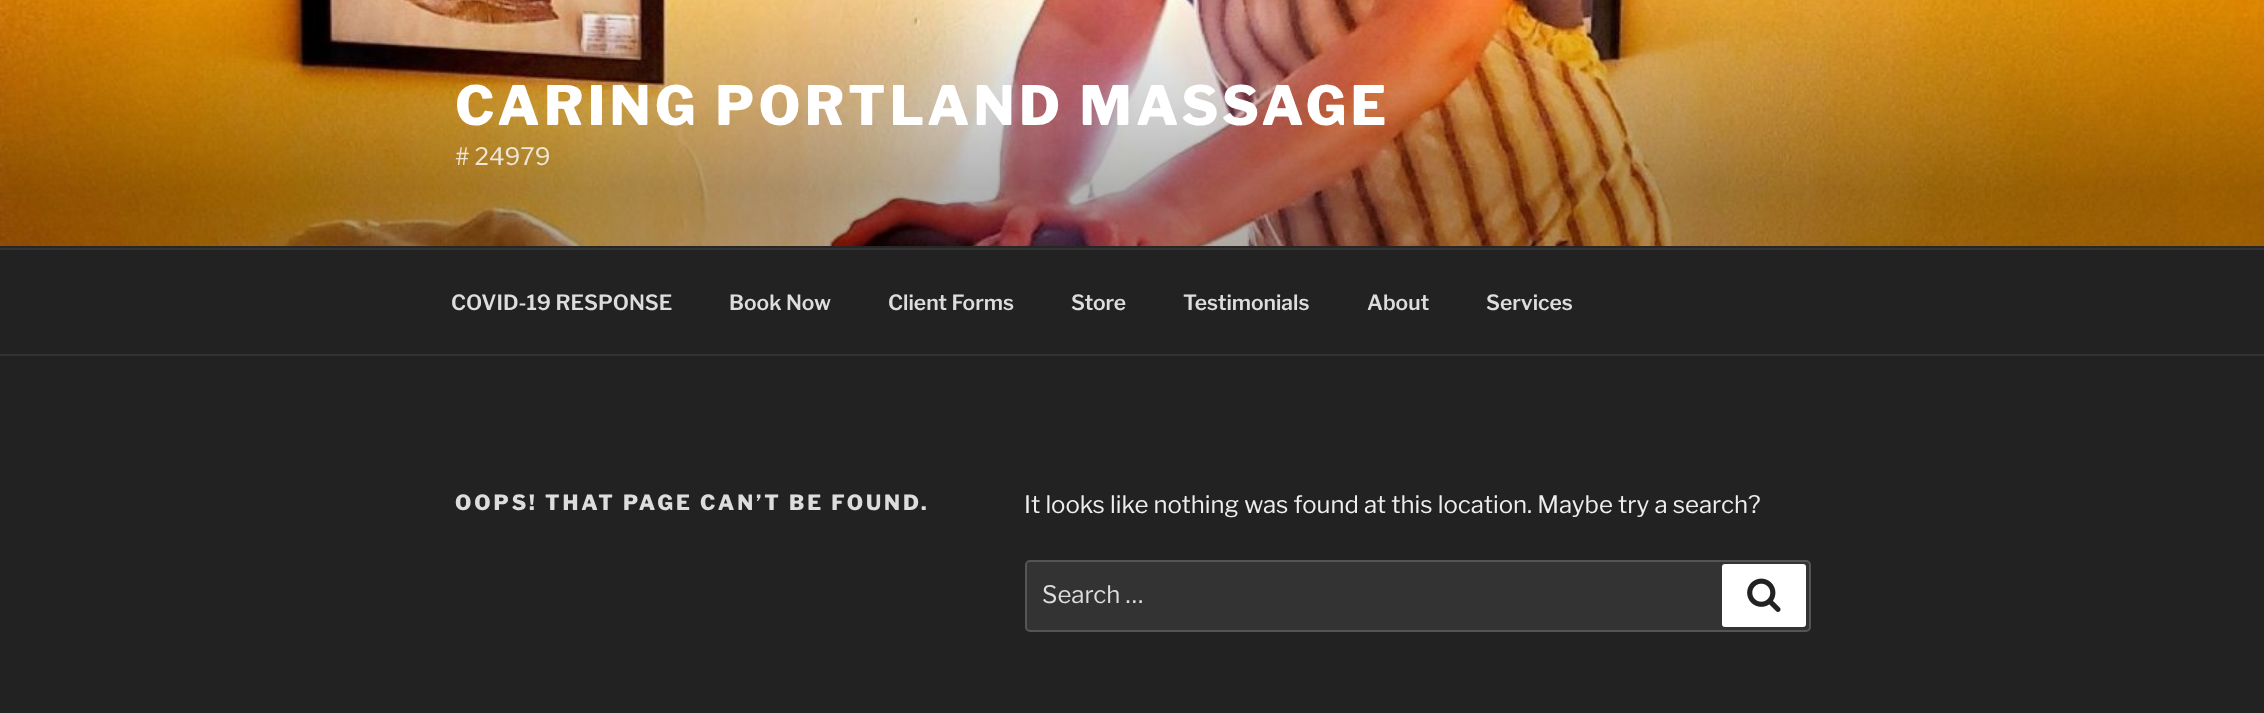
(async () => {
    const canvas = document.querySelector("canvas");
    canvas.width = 2264;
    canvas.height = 713;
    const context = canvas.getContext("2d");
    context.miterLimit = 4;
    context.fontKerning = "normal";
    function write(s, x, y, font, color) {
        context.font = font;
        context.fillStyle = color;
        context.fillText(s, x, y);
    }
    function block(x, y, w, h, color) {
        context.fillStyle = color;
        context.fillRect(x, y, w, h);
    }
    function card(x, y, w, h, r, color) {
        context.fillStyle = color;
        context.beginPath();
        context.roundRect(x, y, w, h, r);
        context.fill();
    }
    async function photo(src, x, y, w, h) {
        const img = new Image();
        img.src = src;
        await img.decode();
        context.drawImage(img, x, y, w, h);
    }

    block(0, 0, 2264, 713, "rgb(34, 34, 34)");
    block(0, 246, 2264, 2, "rgb(38, 38, 38)");
    await photo("media/1.png", 0, 0, 2264, 246);
    context.letterSpacing = "4.3px";
    write("CARING PORTLAND MASSAGE", 455, 125, "100 54px Libre Franklin", "rgb(255, 255, 255)");
    context.letterSpacing = "0px";
    write("# 24979", 455, 165, "100 24px 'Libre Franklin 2'", "rgb(239, 230, 213)");
    block(0, 248, 2264, 2, "rgb(51, 51, 51)");
    block(0, 354, 2264, 2, "rgb(51, 51, 51)");
    write("COVID-19 RESPONSE", 451, 310, "100 21px 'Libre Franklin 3'", "rgb(221, 221, 221)");
    write("Book Now", 729, 310, "100 21px 'Libre Franklin 3'", "rgb(221, 221, 221)");
    write("Client Forms", 888, 310, "100 21px 'Libre Franklin 3'", "rgb(221, 221, 221)");
    write("Store", 1071, 310, "100 21px 'Libre Franklin 3'", "rgb(221, 221, 221)");
    write("Testimonials", 1183, 310, "100 21px 'Libre Franklin 3'", "rgb(221, 221, 221)");
    write("About", 1367, 310, "100 21px 'Libre Franklin 3'", "rgb(221, 221, 221)");
    write("Services", 1486, 310, "100 21px 'Libre Franklin 3'", "rgb(221, 221, 221)");
    context.letterSpacing = "2.95px";
    write("OOPS! THAT PAGE CAN’T BE FOUND.", 455, 510, "100 21px Libre Franklin", "rgb(221, 221, 221)");
    context.letterSpacing = "0px";
    write("It looks like nothing was found at this location. Maybe try a search?", 1024, 513, "100 24px 'Libre Franklin 2'", "rgb(238, 238, 238)");
    context.fillStyle = "rgb(51, 51, 51)";
    context.beginPath();
    context.roundRect(1026, 561, 784, 70, 4);
    context.fill();
    context.strokeStyle = "rgb(85, 85, 85)";
    context.lineWidth = 2;
    context.stroke();
    write("Search …", 1042, 603, "100 24px 'Libre Franklin 2'", "rgb(221, 221, 221)");
    card(1722, 564, 84, 63, 3, "rgb(255, 255, 255)");
    await photo("media/2.png", 1747, 578, 34, 34);
})();
